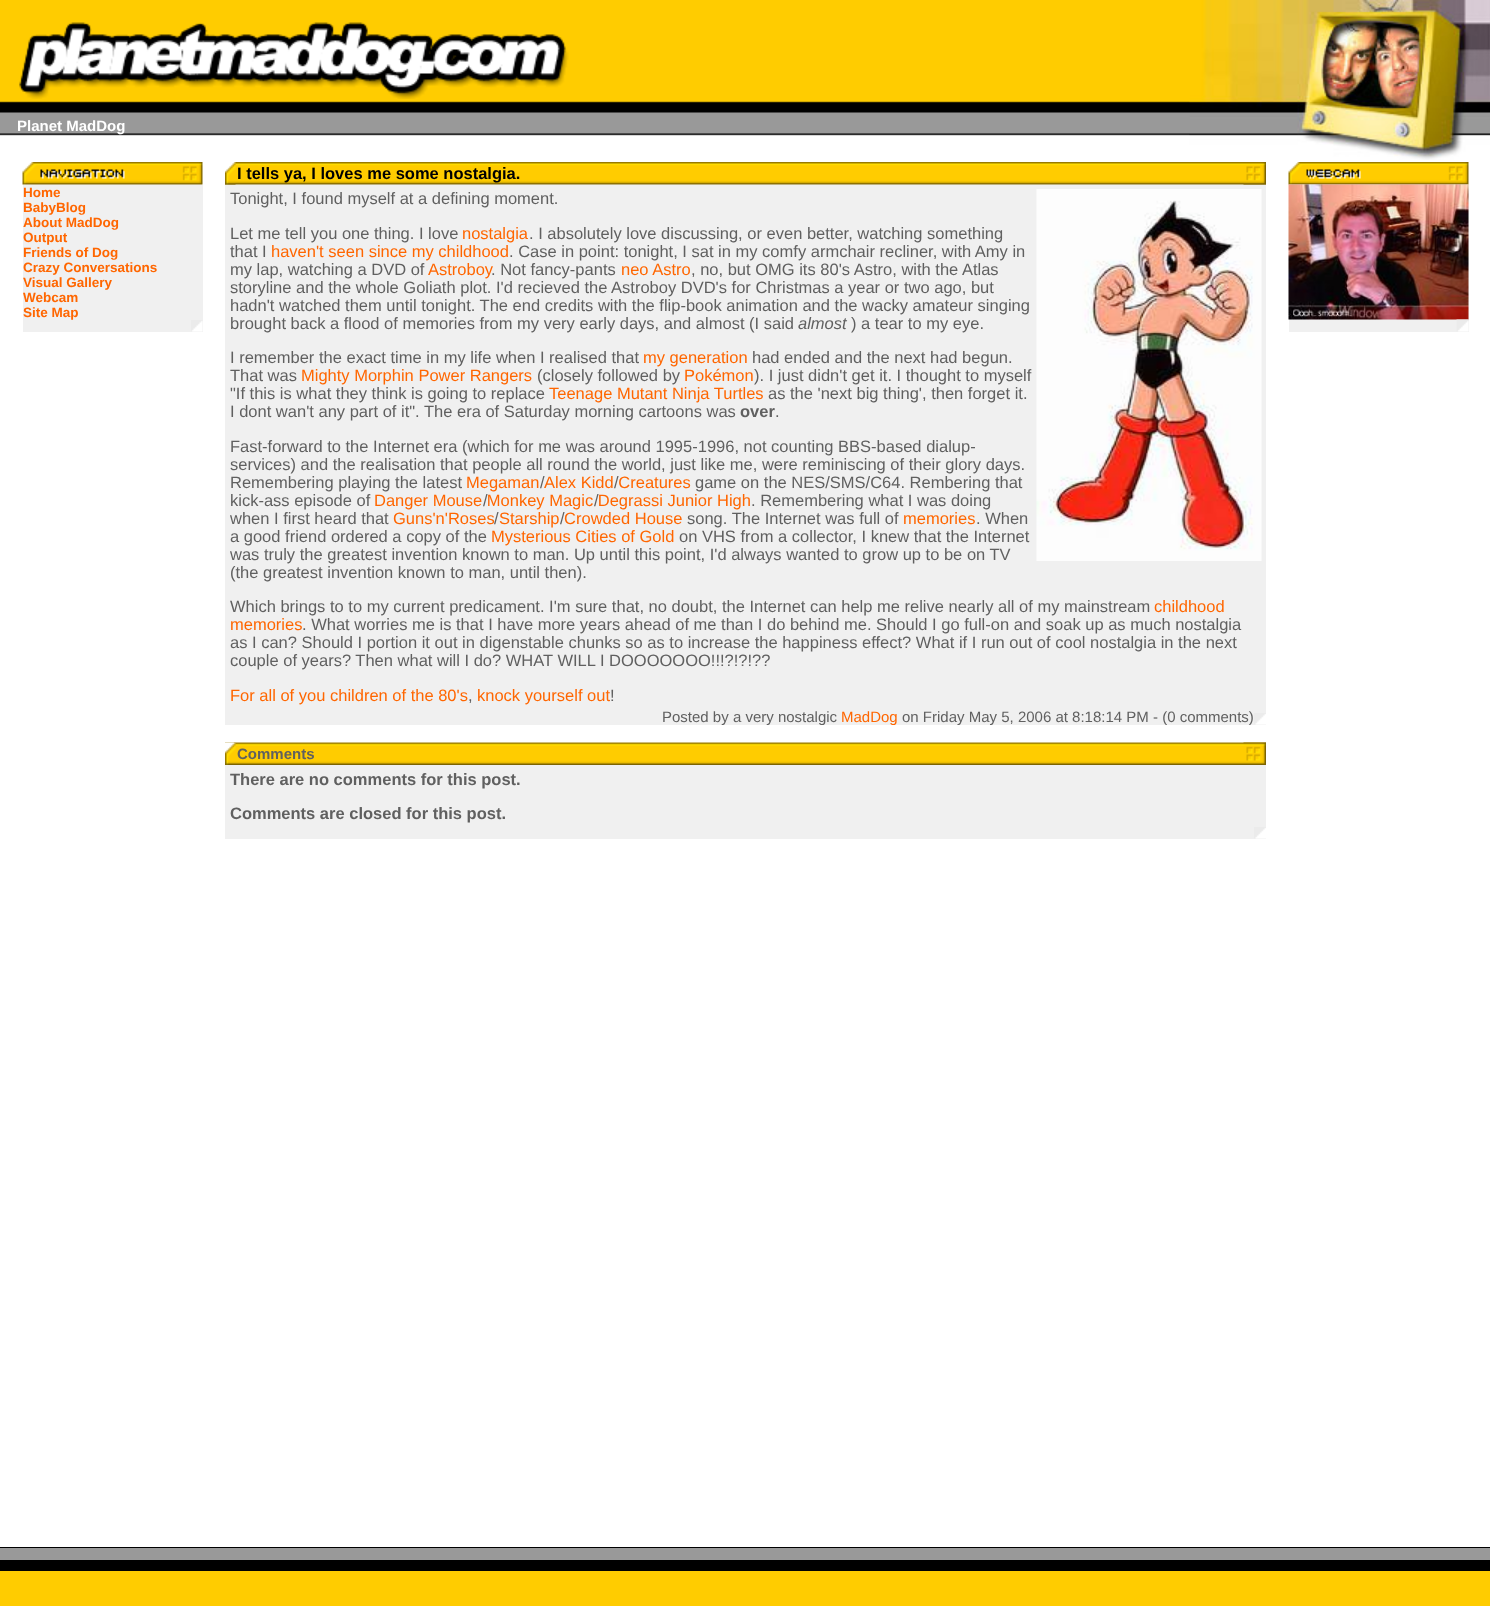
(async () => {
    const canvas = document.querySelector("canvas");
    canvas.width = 1490;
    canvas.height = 1606;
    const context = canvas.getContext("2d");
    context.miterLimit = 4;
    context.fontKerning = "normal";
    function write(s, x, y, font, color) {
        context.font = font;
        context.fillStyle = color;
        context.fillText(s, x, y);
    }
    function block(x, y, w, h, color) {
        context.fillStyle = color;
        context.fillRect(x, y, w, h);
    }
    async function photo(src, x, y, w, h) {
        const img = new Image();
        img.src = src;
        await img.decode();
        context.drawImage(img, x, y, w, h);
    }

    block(0, 0, 1490, 1606, "rgb(255, 255, 255)");
    await photo("media/1.png", 0, 0, 1190, 136);
    await photo("media/2.png", 19, 22, 550, 77);
    await photo("media/3.png", 1189, 0, 301, 160);
    write("Planet MadDog", 17, 131, "bold 15px Liberation Sans", "rgb(255, 255, 255)");
    await photo("media/4.png", 22, 162, 181, 23);
    block(23, 185, 180, 147, "rgb(240, 240, 240)");
    write("Home", 23, 197, "bold 13.5px Liberation Sans", "rgb(255, 102, 0)");
    write("BabyBlog", 23, 212, "bold 13.5px Liberation Sans", "rgb(255, 102, 0)");
    write("About MadDog", 23, 227, "bold 13.5px Liberation Sans", "rgb(255, 102, 0)");
    write("Output", 23, 242, "bold 13.5px Liberation Sans", "rgb(255, 102, 0)");
    write("Friends of Dog", 23, 257, "bold 13.5px Liberation Sans", "rgb(255, 102, 0)");
    write("Crazy Conversations", 23, 272, "bold 13.5px Liberation Sans", "rgb(255, 102, 0)");
    write("Visual Gallery", 23, 287, "bold 13.5px Liberation Sans", "rgb(255, 102, 0)");
    write("Webcam", 23, 302, "bold 13.5px Liberation Sans", "rgb(255, 102, 0)");
    write("Site Map", 23, 317, "bold 13.5px Liberation Sans", "rgb(255, 102, 0)");
    await photo("media/5.png", 191, 320, 12, 12);
    await photo("media/6.png", 225, 162, 1041, 23);
    await photo("media/7.png", 225, 162, 11, 23);
    write("I tells ya, I loves me some nostalgia.", 237, 179, "bold 16.5px Liberation Sans", "rgb(0, 0, 0)");
    await photo("media/8.png", 1243, 162, 23, 23);
    block(225, 185, 1041, 540, "rgb(240, 240, 240)");
    write("Tonight, I found myself at a defining moment.", 230, 204, "16.5px Liberation Sans", "rgb(96, 96, 96)");
    await photo("media/9.png", 1036, 189, 226, 372);
    write("Let me tell you one thing. I love", 230, 239, "16.5px Liberation Sans", "rgb(96, 96, 96)");
    write("nostalgia", 462, 239, "16.5px Liberation Sans", "rgb(255, 102, 0)");
    write(". I absolutely love discussing, or even better, watching something", 529, 239, "16.5px Liberation Sans", "rgb(96, 96, 96)");
    write("that I", 230, 257, "16.5px Liberation Sans", "rgb(96, 96, 96)");
    write("haven't seen since my childhood", 271, 257, "16.5px Liberation Sans", "rgb(255, 102, 0)");
    write(". Case in point: tonight, I sat in my comfy armchair recliner, with Amy in", 509, 257, "16.5px Liberation Sans", "rgb(96, 96, 96)");
    write("my lap, watching a DVD of", 230, 275, "16.5px Liberation Sans", "rgb(96, 96, 96)");
    write("Astroboy", 428, 275, "16.5px Liberation Sans", "rgb(255, 102, 0)");
    write(". Not fancy-pants", 491, 275, "16.5px Liberation Sans", "rgb(96, 96, 96)");
    write("neo Astro", 621, 275, "16.5px Liberation Sans", "rgb(255, 102, 0)");
    write(", no, but OMG its 80's Astro, with the Atlas", 691, 275, "16.5px Liberation Sans", "rgb(96, 96, 96)");
    write("storyline and the whole Goliath plot. I'd recieved the Astroboy DVD's for Christmas a year or two ago, but", 230, 293, "16.5px Liberation Sans", "rgb(96, 96, 96)");
    write("hadn't watched them until tonight. The end credits with the flip-book animation and the wacky amateur singing", 230, 311, "16.5px Liberation Sans", "rgb(96, 96, 96)");
    write("brought back a flood of memories from my very early days, and almost (I said", 230, 329, "16.5px Liberation Sans", "rgb(96, 96, 96)");
    write("almost", 798, 329, "italic 16.5px Liberation Sans", "rgb(96, 96, 96)");
    write(") a tear to my eye.", 851, 329, "16.5px Liberation Sans", "rgb(96, 96, 96)");
    write("I remember the exact time in my life when I realised that", 230, 363, "16.5px Liberation Sans", "rgb(96, 96, 96)");
    write("my generation", 643, 363, "16.5px Liberation Sans", "rgb(255, 102, 0)");
    write("had ended and the next had begun.", 752, 363, "16.5px Liberation Sans", "rgb(96, 96, 96)");
    write("That was", 230, 381, "16.5px Liberation Sans", "rgb(96, 96, 96)");
    write("Mighty Morphin Power Rangers", 301, 381, "16.5px Liberation Sans", "rgb(255, 102, 0)");
    write("(closely followed by", 537, 381, "16.5px Liberation Sans", "rgb(96, 96, 96)");
    write("Pokémon", 684, 381, "16.5px Liberation Sans", "rgb(255, 102, 0)");
    write("). I just didn't get it. I thought to myself", 754, 381, "16.5px Liberation Sans", "rgb(96, 96, 96)");
    write("\"If this is what they think is going to replace", 230, 399, "16.5px Liberation Sans", "rgb(96, 96, 96)");
    write("Teenage Mutant Ninja Turtles", 549, 399, "16.5px Liberation Sans", "rgb(255, 102, 0)");
    write("as the 'next big thing', then forget it.", 768, 399, "16.5px Liberation Sans", "rgb(96, 96, 96)");
    write("I dont wan't any part of it\". The era of Saturday morning cartoons was", 230, 417, "16.5px Liberation Sans", "rgb(96, 96, 96)");
    write("over", 740, 417, "bold 16.5px Liberation Sans", "rgb(96, 96, 96)");
    write(".", 775, 417, "16.5px Liberation Sans", "rgb(96, 96, 96)");
    write("Fast-forward to the Internet era (which for me was around 1995-1996, not counting BBS-based dialup-", 230, 452, "16.5px Liberation Sans", "rgb(96, 96, 96)");
    write("services) and the realisation that people all round the world, just like me, were reminiscing of their glory days.", 230, 470, "16.5px Liberation Sans", "rgb(96, 96, 96)");
    write("Remembering playing the latest", 230, 488, "16.5px Liberation Sans", "rgb(96, 96, 96)");
    write("Megaman", 466, 488, "16.5px Liberation Sans", "rgb(255, 102, 0)");
    write("/", 540, 488, "16.5px Liberation Sans", "rgb(96, 96, 96)");
    write("Alex Kidd Creatures", 544, 488, "16.5px Liberation Sans", "rgb(255, 102, 0)");
    write("/", 614, 488, "16.5px Liberation Sans", "rgb(96, 96, 96)");
    write("game on the NES/SMS/C64. Rembering that", 695, 488, "16.5px Liberation Sans", "rgb(96, 96, 96)");
    write("kick-ass episode of", 230, 506, "16.5px Liberation Sans", "rgb(96, 96, 96)");
    write("Danger Mouse Monkey Magic Degrassi Junior High", 374, 506, "16.5px Liberation Sans", "rgb(255, 102, 0)");
    write("/", 483, 506, "16.5px Liberation Sans", "rgb(96, 96, 96)");
    write("/", 594, 506, "16.5px Liberation Sans", "rgb(96, 96, 96)");
    write(". Remembering what I was doing", 751, 506, "16.5px Liberation Sans", "rgb(96, 96, 96)");
    write("when I first heard that", 230, 524, "16.5px Liberation Sans", "rgb(96, 96, 96)");
    write("Guns'n'Roses", 393, 524, "16.5px Liberation Sans", "rgb(255, 102, 0)");
    write("/", 494, 524, "16.5px Liberation Sans", "rgb(96, 96, 96)");
    write("Starship Crowded House", 499, 524, "16.5px Liberation Sans", "rgb(255, 102, 0)");
    write("/", 560, 524, "16.5px Liberation Sans", "rgb(96, 96, 96)");
    write("song. The Internet was full of", 687, 524, "16.5px Liberation Sans", "rgb(96, 96, 96)");
    write("memories", 903, 524, "16.5px Liberation Sans", "rgb(255, 102, 0)");
    write(". When", 976, 524, "16.5px Liberation Sans", "rgb(96, 96, 96)");
    write("a good friend ordered a copy of the", 230, 542, "16.5px Liberation Sans", "rgb(96, 96, 96)");
    write("Mysterious Cities of Gold", 491, 542, "16.5px Liberation Sans", "rgb(255, 102, 0)");
    write("on VHS from a collector, I knew that the Internet", 679, 542, "16.5px Liberation Sans", "rgb(96, 96, 96)");
    write("was truly the greatest invention known to man. Up until this point, I'd always wanted to grow up to be on TV", 230, 560, "16.5px Liberation Sans", "rgb(96, 96, 96)");
    write("(the greatest invention known to man, until then).", 230, 578, "16.5px Liberation Sans", "rgb(96, 96, 96)");
    write("Which brings to to my current predicament. I'm sure that, no doubt, the Internet can help me relive nearly all of my mainstream", 230, 612, "16.5px Liberation Sans", "rgb(96, 96, 96)");
    write("childhood", 1154, 612, "16.5px Liberation Sans", "rgb(255, 102, 0)");
    write("memories", 230, 630, "16.5px Liberation Sans", "rgb(255, 102, 0)");
    write(". What worries me is that I have more years ahead of me than I do behind me. Should I go full-on and soak up as much nostalgia", 302, 630, "16.5px Liberation Sans", "rgb(96, 96, 96)");
    write("as I can? Should I portion it out in digenstable chunks so as to increase the happiness effect? What if I run out of cool nostalgia in the next", 230, 648, "16.5px Liberation Sans", "rgb(96, 96, 96)");
    write("couple of years? Then what will I do? WHAT WILL I DOOOOOOO!!!?!?!??", 230, 666, "16.5px Liberation Sans", "rgb(96, 96, 96)");
    write("For all of you children of the 80's", 230, 701, "16.5px Liberation Sans", "rgb(255, 102, 0)");
    write("knock yourself out", 477, 701, "16.5px Liberation Sans", "rgb(255, 102, 0)");
    write("!", 610, 701, "16.5px Liberation Sans", "rgb(96, 96, 96)");
    write(",", 468, 701, "16.5px Liberation Sans", "rgb(96, 96, 96)");
    write("Posted by a very nostalgic", 662, 722, "15px Liberation Sans", "rgb(96, 96, 96)");
    write("MadDog", 841, 722, "15px Liberation Sans", "rgb(255, 102, 0)");
    write("on Friday May 5, 2006 at 8:18:14 PM - (0 comments)", 902, 722, "15px Liberation Sans", "rgb(96, 96, 96)");
    await photo("media/10.png", 1254, 713, 12, 12);
    await photo("media/11.png", 225, 742, 1041, 23);
    await photo("media/12.png", 225, 742, 11, 23);
    write("Comments", 237, 759, "bold 15px Liberation Sans", "rgb(96, 96, 96)");
    await photo("media/13.png", 1243, 742, 23, 22);
    block(225, 765, 1041, 74, "rgb(240, 240, 240)");
    write("There are no comments for this post.", 230, 785, "bold 16.5px Liberation Sans", "rgb(96, 96, 96)");
    write("Comments are closed for this post.", 230, 819, "bold 16.5px Liberation Sans", "rgb(96, 96, 96)");
    await photo("media/10.png", 1254, 827, 12, 12);
    await photo("media/14.png", 1288, 162, 181, 23);
    block(1289, 185, 180, 147, "rgb(240, 240, 240)");
    await photo("media/15.png", 1288, 184, 181, 136);
    await photo("media/16.png", 1456, 319, 13, 13);
    block(0, 1547, 1490, 1, "rgb(0, 0, 0)");
    block(0, 1548, 1490, 12, "rgb(153, 153, 153)");
    block(0, 1560, 1490, 11, "rgb(0, 0, 0)");
    block(0, 1571, 1490, 35, "rgb(255, 204, 0)");
})();
